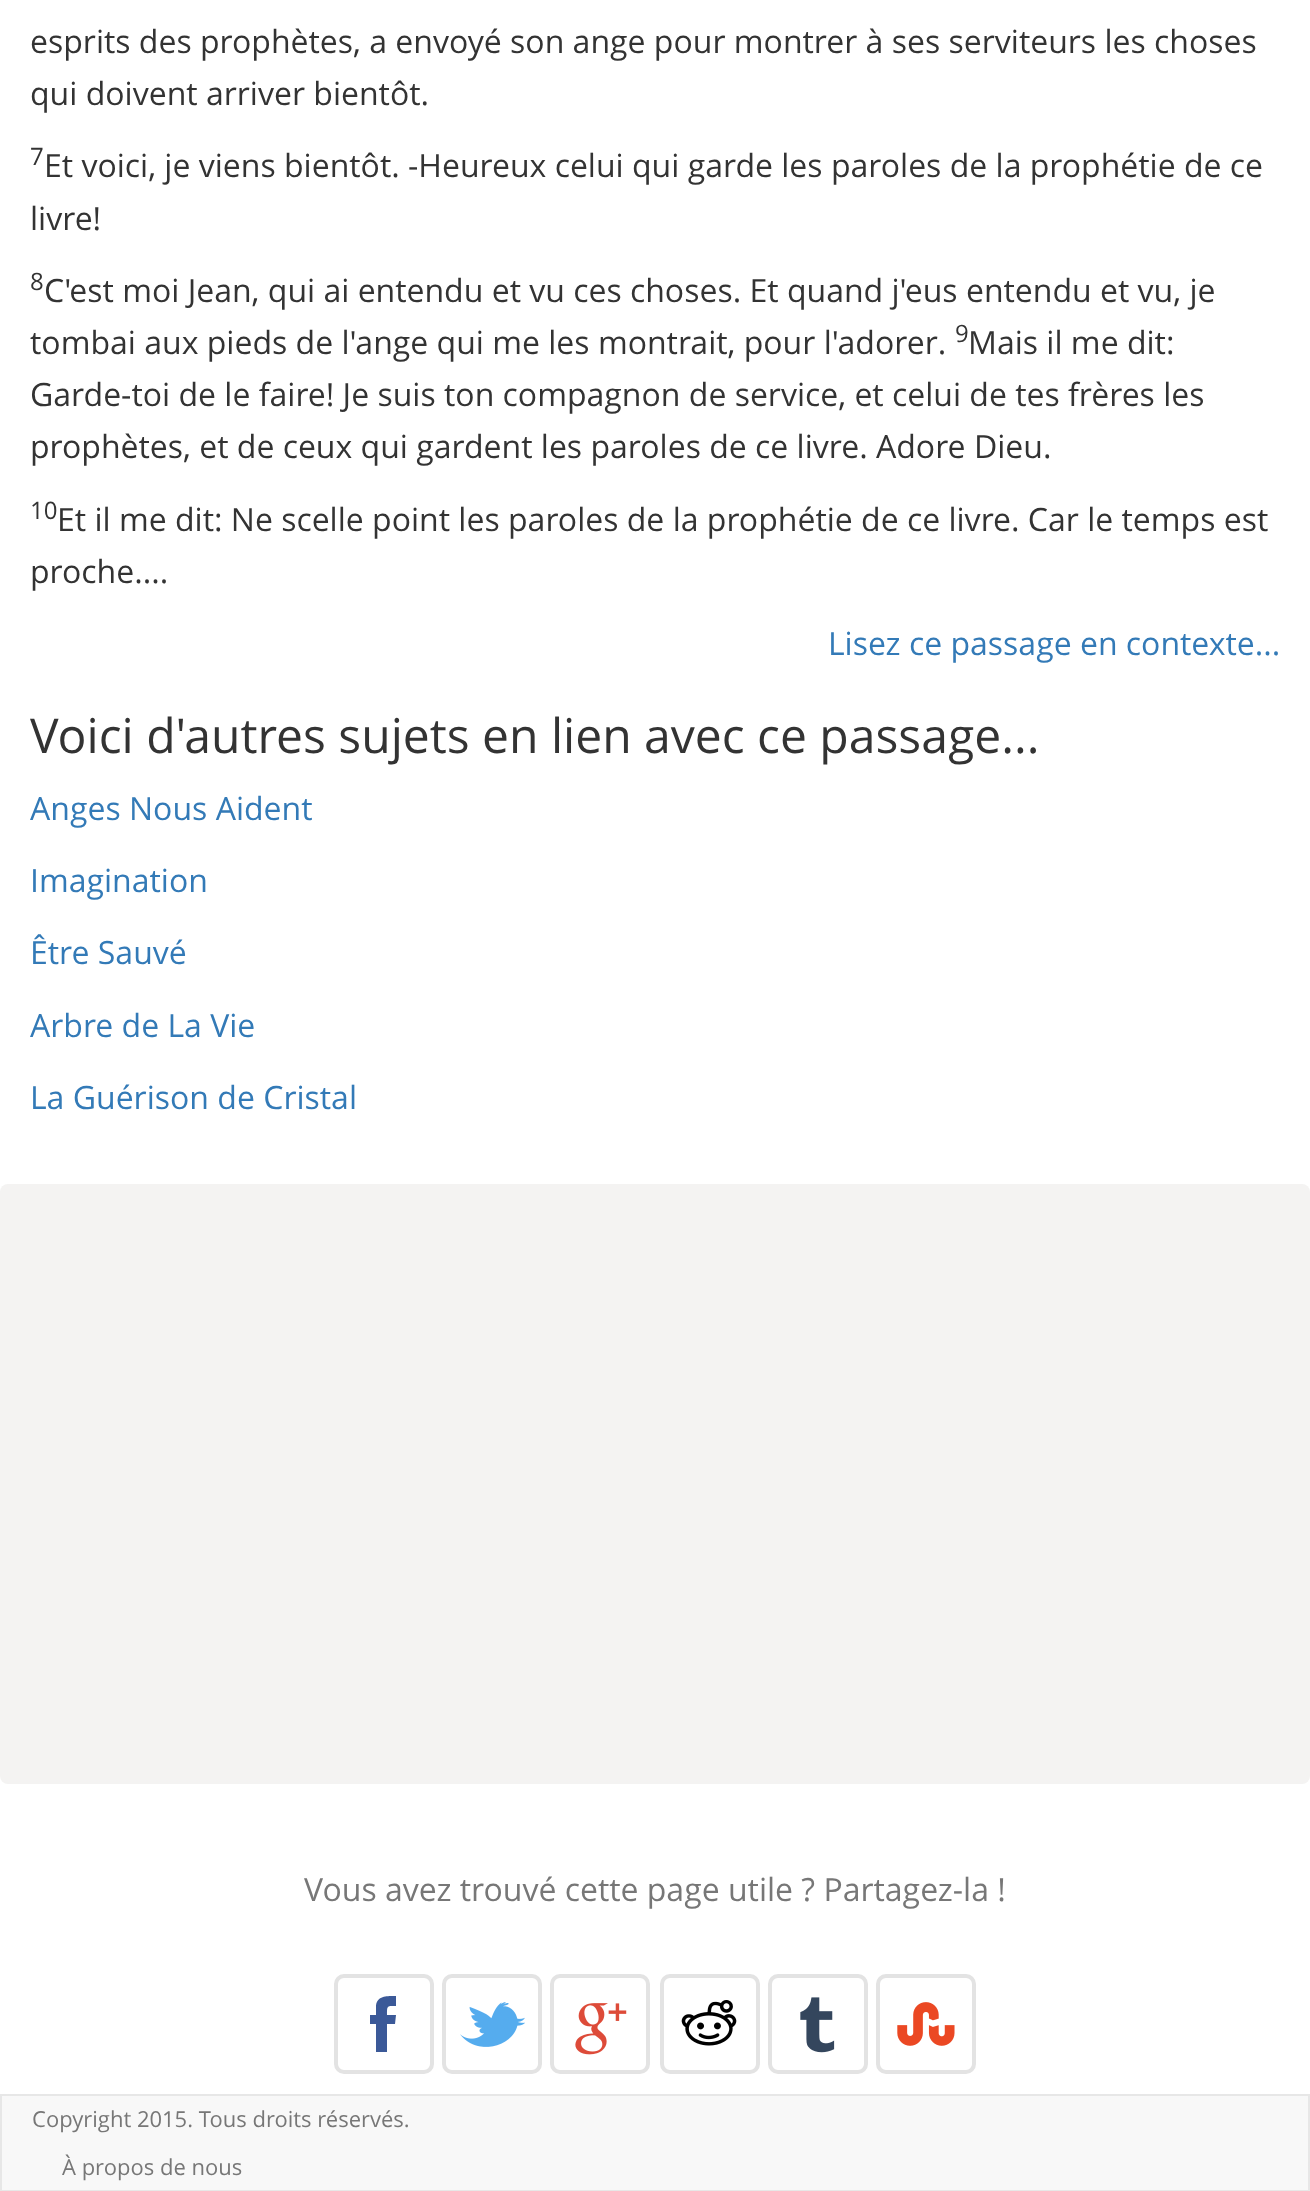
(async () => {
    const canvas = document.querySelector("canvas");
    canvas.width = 1310;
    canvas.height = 2191;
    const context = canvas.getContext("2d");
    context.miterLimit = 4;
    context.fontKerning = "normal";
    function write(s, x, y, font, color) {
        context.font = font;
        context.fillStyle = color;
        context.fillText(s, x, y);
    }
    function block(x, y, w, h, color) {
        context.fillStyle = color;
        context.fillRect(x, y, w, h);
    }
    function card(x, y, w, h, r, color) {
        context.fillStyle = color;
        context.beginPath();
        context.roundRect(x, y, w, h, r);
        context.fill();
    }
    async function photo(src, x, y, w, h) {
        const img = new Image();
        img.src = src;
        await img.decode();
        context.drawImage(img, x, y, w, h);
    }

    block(0, 0, 1310, 2191, "rgb(255, 255, 255)");
    write("esprits des prophètes, a envoyé son ange pour montrer à ses serviteurs les choses", 30, 53, "32px Open Sans", "rgb(51, 51, 51)");
    write("qui doivent arriver bientôt.", 30, 105, "32px Open Sans", "rgb(51, 51, 51)");
    write("7", 30, 165, "24px Open Sans", "rgb(51, 51, 51)");
    write("Et voici, je viens bientôt. -Heureux celui qui garde les paroles de la prophétie de ce", 44, 177, "32px Open Sans", "rgb(51, 51, 51)");
    write("livre!", 30, 230, "32px Open Sans", "rgb(51, 51, 51)");
    write("8", 30, 290, "24px Open Sans", "rgb(51, 51, 51)");
    write("C'est moi Jean, qui ai entendu et vu ces choses. Et quand j'eus entendu et vu, je", 44, 302, "32px Open Sans", "rgb(51, 51, 51)");
    write("tombai aux pieds de l'ange qui me les montrait, pour l'adorer.", 30, 354, "32px Open Sans", "rgb(51, 51, 51)");
    write("9", 955, 342, "24px Open Sans", "rgb(51, 51, 51)");
    write("Mais il me dit:", 968, 354, "32px Open Sans", "rgb(51, 51, 51)");
    write("Garde-toi de le faire! Je suis ton compagnon de service, et celui de tes frères les", 30, 406, "32px Open Sans", "rgb(51, 51, 51)");
    write("prophètes, et de ceux qui gardent les paroles de ce livre. Adore Dieu.", 30, 458, "32px Open Sans", "rgb(51, 51, 51)");
    write("10", 30, 519, "24px Open Sans", "rgb(51, 51, 51)");
    write("Et il me dit: Ne scelle point les paroles de la prophétie de ce livre. Car le temps est", 57, 531, "32px Open Sans", "rgb(51, 51, 51)");
    write("proche....", 30, 583, "32px Open Sans", "rgb(51, 51, 51)");
    write("Lisez ce passage en contexte...", 828, 655, "32px Open Sans", "rgb(51, 122, 183)");
    write("Voici d'autres sujets en lien avec ce passage...", 30, 753, "48px Open Sans", "rgb(51, 51, 51)");
    write("Anges Nous Aident", 30, 820, "32px Open Sans", "rgb(51, 122, 183)");
    write("Imagination", 30, 892, "32px Open Sans", "rgb(51, 122, 183)");
    write("Être Sauvé", 30, 964, "32px Open Sans", "rgb(51, 122, 183)");
    write("Arbre de La Vie", 30, 1037, "32px Open Sans", "rgb(51, 122, 183)");
    write("La Guérison de Cristal", 30, 1109, "32px Open Sans", "rgb(51, 122, 183)");
    card(0, 1184, 1310, 600, 8, "rgb(244, 243, 242)");
    write("Vous avez trouvé cette page utile ? Partagez-la !", 304, 1901, "32px Open Sans", "rgb(119, 119, 119)");
    context.beginPath();
    context.roundRect(336, 1976, 96, 96, 8);
    context.strokeStyle = "rgb(227, 227, 227)";
    context.lineWidth = 4;
    context.stroke();
    context.fillStyle = "rgb(59, 89, 152)";
    context.beginPath();
    context.moveTo(376, 2007);
    context.lineTo(376, 2015);
    context.lineTo(370, 2015);
    context.lineTo(370, 2024);
    context.lineTo(376, 2024);
    context.lineTo(376, 2052);
    context.lineTo(387, 2052);
    context.lineTo(387, 2024);
    context.lineTo(395, 2024);
    context.lineTo(396, 2015);
    context.lineTo(387, 2015);
    context.bezierCurveTo(387, 2005, 387, 2006, 396, 2006);
    context.lineTo(396, 1996);
    context.bezierCurveTo(388, 1996, 376, 1995, 376, 2007);
    context.closePath();
    context.fill();
    context.beginPath();
    context.roundRect(444, 1976, 96, 96, 8);
    context.stroke();
    await photo("media/1.png", 460, 2002, 65, 45);
    context.beginPath();
    context.roundRect(552, 1976, 96, 96, 8);
    context.stroke();
    await photo("media/2.png", 575, 2003, 52, 52);
    context.beginPath();
    context.roundRect(662, 1976, 96, 96, 8);
    context.stroke();
    await photo("media/3.png", 681, 2000, 56, 46);
    context.beginPath();
    context.roundRect(770, 1976, 96, 96, 8);
    context.stroke();
    await photo("media/4.png", 800, 1997, 35, 56);
    context.beginPath();
    context.roundRect(878, 1976, 96, 96, 8);
    context.stroke();
    await photo("media/5.png", 897, 2002, 58, 44);
    context.fillStyle = "rgb(248, 248, 248)";
    context.beginPath();
    context.rect(1, 2095, 1308, 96);
    context.fill();
    context.strokeStyle = "rgb(231, 231, 231)";
    context.lineWidth = 2;
    context.stroke();
    write("Copyright 2015. Tous droits réservés.", 32, 2127, "22px Open Sans", "rgb(119, 119, 119)");
    write("À propos de nous", 62, 2175, "22px Open Sans", "rgb(119, 119, 119)");
})();
